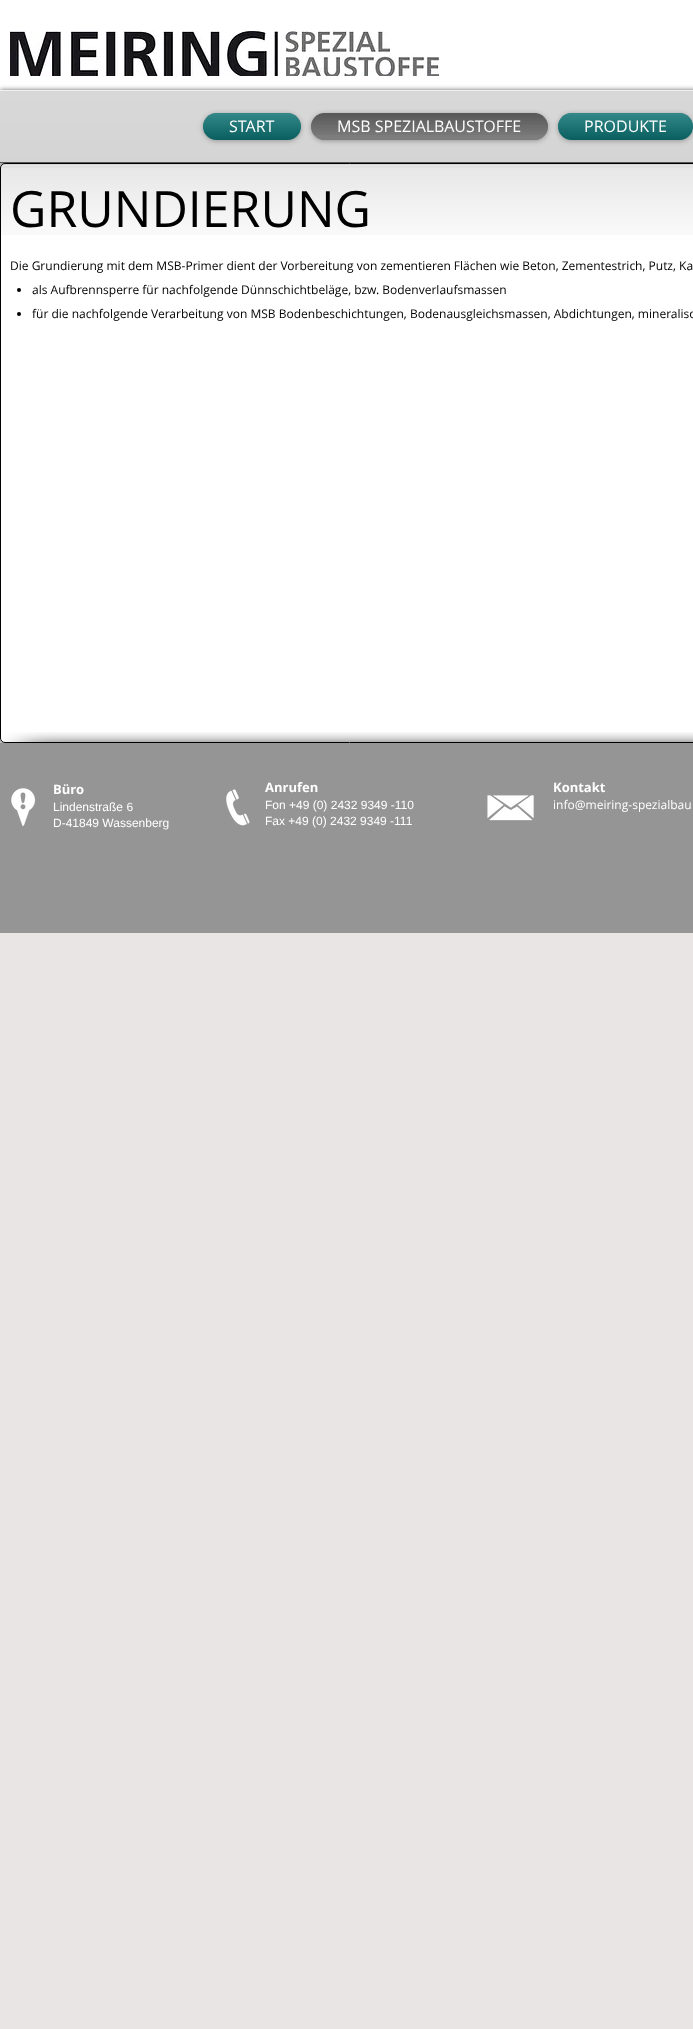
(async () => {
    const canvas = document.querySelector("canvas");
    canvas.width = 693;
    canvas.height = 2029;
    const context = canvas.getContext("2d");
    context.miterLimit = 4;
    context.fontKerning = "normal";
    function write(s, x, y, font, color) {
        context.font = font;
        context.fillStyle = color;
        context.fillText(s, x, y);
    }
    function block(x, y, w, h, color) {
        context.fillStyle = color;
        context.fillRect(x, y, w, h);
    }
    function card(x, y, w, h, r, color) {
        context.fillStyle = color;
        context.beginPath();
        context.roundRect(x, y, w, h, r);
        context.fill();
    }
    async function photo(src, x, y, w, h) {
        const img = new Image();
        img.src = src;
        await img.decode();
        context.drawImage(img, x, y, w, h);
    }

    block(0, 0, 693, 2029, "rgb(234, 229, 229)");
    block(0, 0, 693, 90, "rgb(255, 255, 255)");
    await photo("media/1.png", 10, 31, 429, 45);
    context.fillStyle = "rgba(0, 0, 0, 0.6)";
    context.filter = "blur(2px)";
    context.beginPath();
    context.roundRect(0, 164, 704, 580, 5);
    context.fill();
    context.filter = "none";
    card(0, 163, 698, 580, 5, "rgb(255, 255, 255)");
    await photo("media/9.png", 0, 166, 693, 69);
    context.beginPath();
    context.roundRect(0.5, 163.5, 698, 579, 4.5);
    context.strokeStyle = "rgb(0, 0, 0)";
    context.stroke();
    context.fillStyle = "rgba(0, 0, 0, 0.6)";
    context.filter = "blur(2.5px)";
    context.beginPath();
    context.rect(0, 90, 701, 73);
    context.fill();
    context.filter = "none";
    block(0, 91, 693, 71, "rgb(203, 203, 203)");
    await photo("media/2.png", 0, 91, 693, 71);
    block(0, 162, 693, 1, "rgb(85, 85, 85)");
    block(0, 90, 693, 1, "rgb(240, 240, 240)");
    context.fillStyle = "rgba(107, 106, 106, 0.6)";
    context.filter = "blur(2.5px)";
    context.beginPath();
    context.roundRect(203, 114, 98, 27, 13.5);
    context.fill();
    context.filter = "none";
    card(203, 113, 98, 27, 13.5, "rgb(0, 108, 109)");
    await photo("media/3.png", 203, 113, 98, 27);
    await photo("media/4.png", 203, 115, 98, 25);
    write("START", 229, 132, "16px Open Sans", "rgb(255, 255, 255)");
    context.fillStyle = "rgba(107, 106, 106, 0.6)";
    context.filter = "blur(2.5px)";
    context.beginPath();
    context.roundRect(311, 114, 237, 27, 13.5);
    context.fill();
    context.filter = "none";
    card(311, 113, 237, 27, 13.5, "rgb(95, 95, 95)");
    await photo("media/5.png", 311, 113, 237, 22);
    await photo("media/6.png", 311, 113, 237, 27);
    write("MSB SPEZIALBAUSTOFFE", 337, 132, "16px Open Sans", "rgb(255, 255, 255)");
    context.fillStyle = "rgba(107, 106, 106, 0.6)";
    context.filter = "blur(2.5px)";
    context.beginPath();
    context.roundRect(558, 114, 135, 27, 13.5);
    context.fill();
    context.filter = "none";
    card(558, 113, 135, 27, 13.5, "rgb(0, 108, 109)");
    await photo("media/7.png", 558, 113, 135, 27);
    await photo("media/8.png", 558, 115, 135, 25);
    write("PRODUKTE", 584, 132, "16px Open Sans", "rgb(255, 255, 255)");
    write("GRUNDIERUNG", 10, 227, "50px Open Sans", "rgb(0, 0, 0)");
    write("Die Grundierung mit dem MSB-Primer dient der Vorbereitung von zementieren Flächen wie Beton, Zementestrich, Putz, Ka", 10, 270, "12px Open Sans", "rgb(0, 0, 0)");
    context.beginPath();
    context.arc(19, 290, 2, 0, Math.PI * 2);
    context.fill();
    write("als Aufbrennsperre für nachfolgende Dünnschichtbeläge, bzw. Bodenverlaufsmassen", 32, 294, "12px Open Sans", "rgb(0, 0, 0)");
    context.beginPath();
    context.arc(19, 314, 2, 0, Math.PI * 2);
    context.fill();
    write("für die nachfolgende Verarbeitung von MSB Bodenbeschichtungen, Bodenausgleichsmassen, Abdichtungen, mineralisc", 32, 318, "12px Open Sans", "rgb(0, 0, 0)");
    block(0, 743, 693, 190, "rgb(149, 149, 149)");
    await photo("media/10.png", 4, 732, 96, 10);
    await photo("media/11.png", 100, 732, 593, 10);
    await photo("media/12.png", 11, 788, 25, 38);
    write("Büro", 53, 794, "bold 13px Open Sans", "rgb(255, 255, 255)");
    write("Lindenstraße 6", 53, 811, "12px Liberation Sans", "rgb(255, 255, 255)");
    write("D-41849 Wassenberg", 53, 827, "12px Liberation Sans", "rgb(255, 255, 255)");
    await photo("media/13.png", 226, 789, 24, 37);
    write("Anrufen", 265, 792, "bold 13px Open Sans", "rgb(255, 255, 255)");
    write("Fon +49 (0) 2432 9349 -110", 265, 809, "12px Liberation Sans", "rgb(255, 255, 255)");
    write("Fax +49 (0) 2432 9349 -111", 265, 825, "12px Liberation Sans", "rgb(255, 255, 255)");
    await photo("media/14.png", 487, 795, 47, 26);
    write("Kontakt", 553, 792, "bold 13px Open Sans", "rgb(255, 255, 255)");
    write("info@meiring-spezialbau", 553, 809, "12px Open Sans", "rgb(255, 255, 255)");
})();
